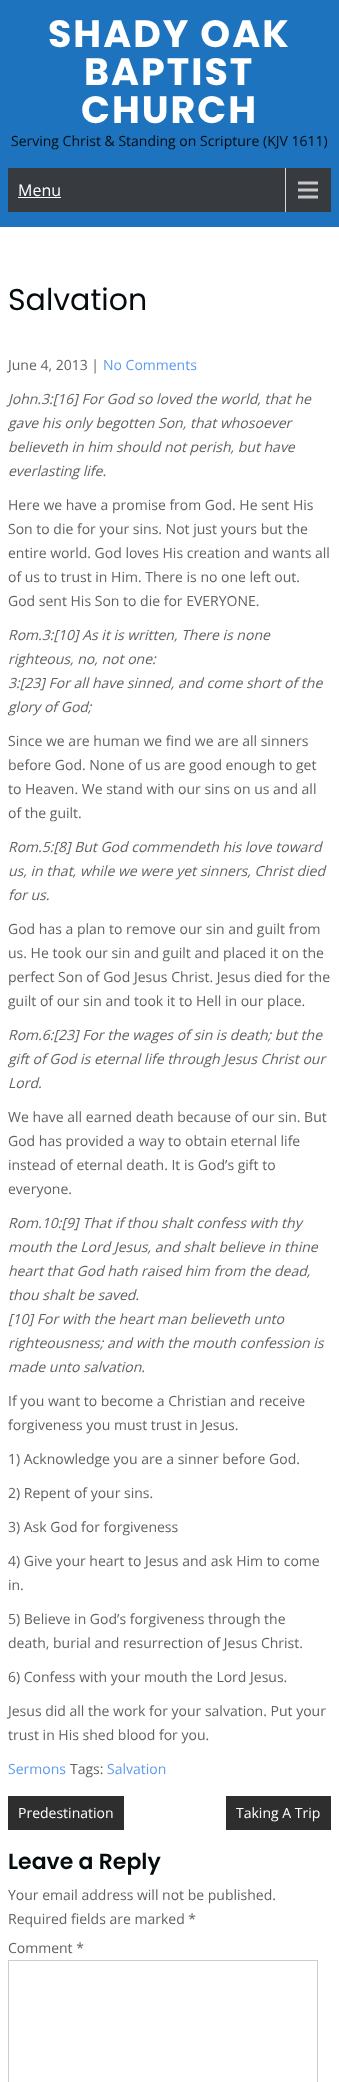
(async () => {
    const canvas = document.querySelector("canvas");
    canvas.width = 339;
    canvas.height = 2082;
    const context = canvas.getContext("2d");
    context.miterLimit = 4;
    context.fontKerning = "normal";
    function write(s, x, y, font, color) {
        context.font = font;
        context.fillStyle = color;
        context.fillText(s, x, y);
    }
    function block(x, y, w, h, color) {
        context.fillStyle = color;
        context.fillRect(x, y, w, h);
    }
    async function photo(src, x, y, w, h) {
        const img = new Image();
        img.src = src;
        await img.decode();
        context.drawImage(img, x, y, w, h);
    }

    block(0, 0, 339, 2082, "rgb(255, 255, 255)");
    block(0, 0, 339, 227, "rgb(30, 115, 190)");
    context.letterSpacing = "2px";
    write("SHADY OAK", 48, 47, "bold 38px Poppins", "rgb(255, 255, 255)");
    write("BAPTIST", 84, 85, "bold 38px Poppins", "rgb(255, 255, 255)");
    write("CHURCH", 81, 123, "bold 38px Poppins", "rgb(255, 255, 255)");
    context.letterSpacing = "0px";
    write("Serving Christ & Standing on Scripture (KJV 1611)", 11, 146, "14px Open Sans", "rgb(5, 12, 15)");
    block(8, 168, 323, 44, "rgb(55, 58, 63)");
    await photo("media/1.png", 285, 168, 33, 44);
    write("Menu", 18, 196, "16px Open Sans", "rgb(255, 255, 255)");
    block(18, 197, 43, 1, "rgb(255, 255, 255)");
    write("Salvation", 8, 310, "30px Poppins", "rgb(5, 12, 15)");
    write("June 4, 2013 |", 8, 370, "14px Open Sans", "rgb(98, 98, 98)");
    write("No Comments", 103, 370, "14px Open Sans", "rgb(93, 154, 239)");
    write("John.3:[16] For God so loved the world, that he", 8, 404, "italic 14px Open Sans", "rgb(98, 98, 98)");
    write("gave his only begotten Son, that whosoever", 8, 428, "italic 14px Open Sans", "rgb(98, 98, 98)");
    write("believeth in him should not perish, but have", 8, 452, "italic 14px Open Sans", "rgb(98, 98, 98)");
    write("everlasting life.", 8, 476, "italic 14px Open Sans", "rgb(98, 98, 98)");
    write("Here we have a promise from God. He sent His", 8, 510, "14px Open Sans", "rgb(98, 98, 98)");
    write("Son to die for your sins. Not just yours but the", 8, 534, "14px Open Sans", "rgb(98, 98, 98)");
    write("entire world. God loves His creation and wants all", 8, 558, "14px Open Sans", "rgb(98, 98, 98)");
    write("of us to trust in Him. There is no one left out.", 8, 582, "14px Open Sans", "rgb(98, 98, 98)");
    write("God sent His Son to die for EVERYONE.", 8, 606, "14px Open Sans", "rgb(98, 98, 98)");
    write("Rom.3:[10] As it is written, There is none", 8, 640, "italic 14px Open Sans", "rgb(98, 98, 98)");
    write("righteous, no, not one:", 8, 664, "italic 14px Open Sans", "rgb(98, 98, 98)");
    write("3:[23] For all have sinned, and come short of the", 8, 688, "italic 14px Open Sans", "rgb(98, 98, 98)");
    write("glory of God;", 8, 712, "italic 14px Open Sans", "rgb(98, 98, 98)");
    write("Since we are human we find we are all sinners", 8, 746, "14px Open Sans", "rgb(98, 98, 98)");
    write("before God. None of us are good enough to get", 8, 770, "14px Open Sans", "rgb(98, 98, 98)");
    write("to Heaven. We stand with our sins on us and all", 8, 794, "14px Open Sans", "rgb(98, 98, 98)");
    write("of the guilt.", 8, 818, "14px Open Sans", "rgb(98, 98, 98)");
    write("Rom.5:[8] But God commendeth his love toward", 8, 852, "italic 14px Open Sans", "rgb(98, 98, 98)");
    write("us, in that, while we were yet sinners, Christ died", 8, 876, "italic 14px Open Sans", "rgb(98, 98, 98)");
    write("for us.", 8, 900, "italic 14px Open Sans", "rgb(98, 98, 98)");
    write("God has a plan to remove our sin and guilt from", 8, 934, "14px Open Sans", "rgb(98, 98, 98)");
    write("us. He took our sin and guilt and placed it on the", 8, 958, "14px Open Sans", "rgb(98, 98, 98)");
    write("perfect Son of God Jesus Christ. Jesus died for the", 8, 982, "14px Open Sans", "rgb(98, 98, 98)");
    write("guilt of our sin and took it to Hell in our place.", 8, 1006, "14px Open Sans", "rgb(98, 98, 98)");
    write("Rom.6:[23] For the wages of sin is death; but the", 8, 1040, "italic 14px Open Sans", "rgb(98, 98, 98)");
    write("gift of God is eternal life through Jesus Christ our", 8, 1064, "italic 14px Open Sans", "rgb(98, 98, 98)");
    write("Lord.", 8, 1088, "italic 14px Open Sans", "rgb(98, 98, 98)");
    write("We have all earned death because of our sin. But", 8, 1122, "14px Open Sans", "rgb(98, 98, 98)");
    write("God has provided a way to obtain eternal life", 8, 1146, "14px Open Sans", "rgb(98, 98, 98)");
    write("instead of eternal death. It is God’s gift to", 8, 1170, "14px Open Sans", "rgb(98, 98, 98)");
    write("everyone.", 8, 1194, "14px Open Sans", "rgb(98, 98, 98)");
    write("Rom.10:[9] That if thou shalt confess with thy", 8, 1228, "italic 14px Open Sans", "rgb(98, 98, 98)");
    write("mouth the Lord Jesus, and shalt believe in thine", 8, 1252, "italic 14px Open Sans", "rgb(98, 98, 98)");
    write("heart that God hath raised him from the dead,", 8, 1276, "italic 14px Open Sans", "rgb(98, 98, 98)");
    write("thou shalt be saved.", 8, 1300, "italic 14px Open Sans", "rgb(98, 98, 98)");
    write("[10] For with the heart man believeth unto", 8, 1324, "italic 14px Open Sans", "rgb(98, 98, 98)");
    write("righteousness; and with the mouth confession is", 8, 1348, "italic 14px Open Sans", "rgb(98, 98, 98)");
    write("made unto salvation.", 8, 1372, "italic 14px Open Sans", "rgb(98, 98, 98)");
    write("If you want to become a Christian and receive", 8, 1406, "14px Open Sans", "rgb(98, 98, 98)");
    write("forgiveness you must trust in Jesus.", 8, 1430, "14px Open Sans", "rgb(98, 98, 98)");
    write("1) Acknowledge you are a sinner before God.", 8, 1464, "14px Open Sans", "rgb(98, 98, 98)");
    write("2) Repent of your sins.", 8, 1498, "14px Open Sans", "rgb(98, 98, 98)");
    write("3) Ask God for forgiveness", 8, 1532, "14px Open Sans", "rgb(98, 98, 98)");
    write("4) Give your heart to Jesus and ask Him to come", 8, 1566, "14px Open Sans", "rgb(98, 98, 98)");
    write("in.", 8, 1590, "14px Open Sans", "rgb(98, 98, 98)");
    write("5) Believe in God’s forgiveness through the", 8, 1624, "14px Open Sans", "rgb(98, 98, 98)");
    write("death, burial and resurrection of Jesus Christ.", 8, 1648, "14px Open Sans", "rgb(98, 98, 98)");
    write("6) Confess with your mouth the Lord Jesus.", 8, 1682, "14px Open Sans", "rgb(98, 98, 98)");
    write("Jesus did all the work for your salvation. Put your", 8, 1716, "14px Open Sans", "rgb(98, 98, 98)");
    write("trust in His shed blood for you.", 8, 1740, "14px Open Sans", "rgb(98, 98, 98)");
    write("Sermons", 8, 1774, "14px Open Sans", "rgb(93, 154, 239)");
    write("Tags:", 70, 1774, "14px Open Sans", "rgb(98, 98, 98)");
    write("Salvation", 107, 1774, "14px Open Sans", "rgb(93, 154, 239)");
    block(8, 1796, 116, 34, "rgb(46, 46, 46)");
    write("Predestination", 18, 1818, "14px Open Sans", "rgb(255, 255, 255)");
    block(226, 1796, 105, 34, "rgb(46, 46, 46)");
    write("Taking A Trip", 236, 1818, "14px Open Sans", "rgb(255, 255, 255)");
    write("Leave a Reply", 8, 1869, "600 22px Poppins", "rgb(5, 12, 15)");
    write("Your email address will not be published.", 8, 1900, "14px Open Sans", "rgb(98, 98, 98)");
    write("Required fields are marked *", 8, 1924, "14px Open Sans", "rgb(98, 98, 98)");
    write("Comment *", 8, 1953, "14px Open Sans", "rgb(98, 98, 98)");
    context.strokeStyle = "rgb(204, 204, 204)";
    context.strokeRect(8.5, 1960.5, 309, 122);
})();
